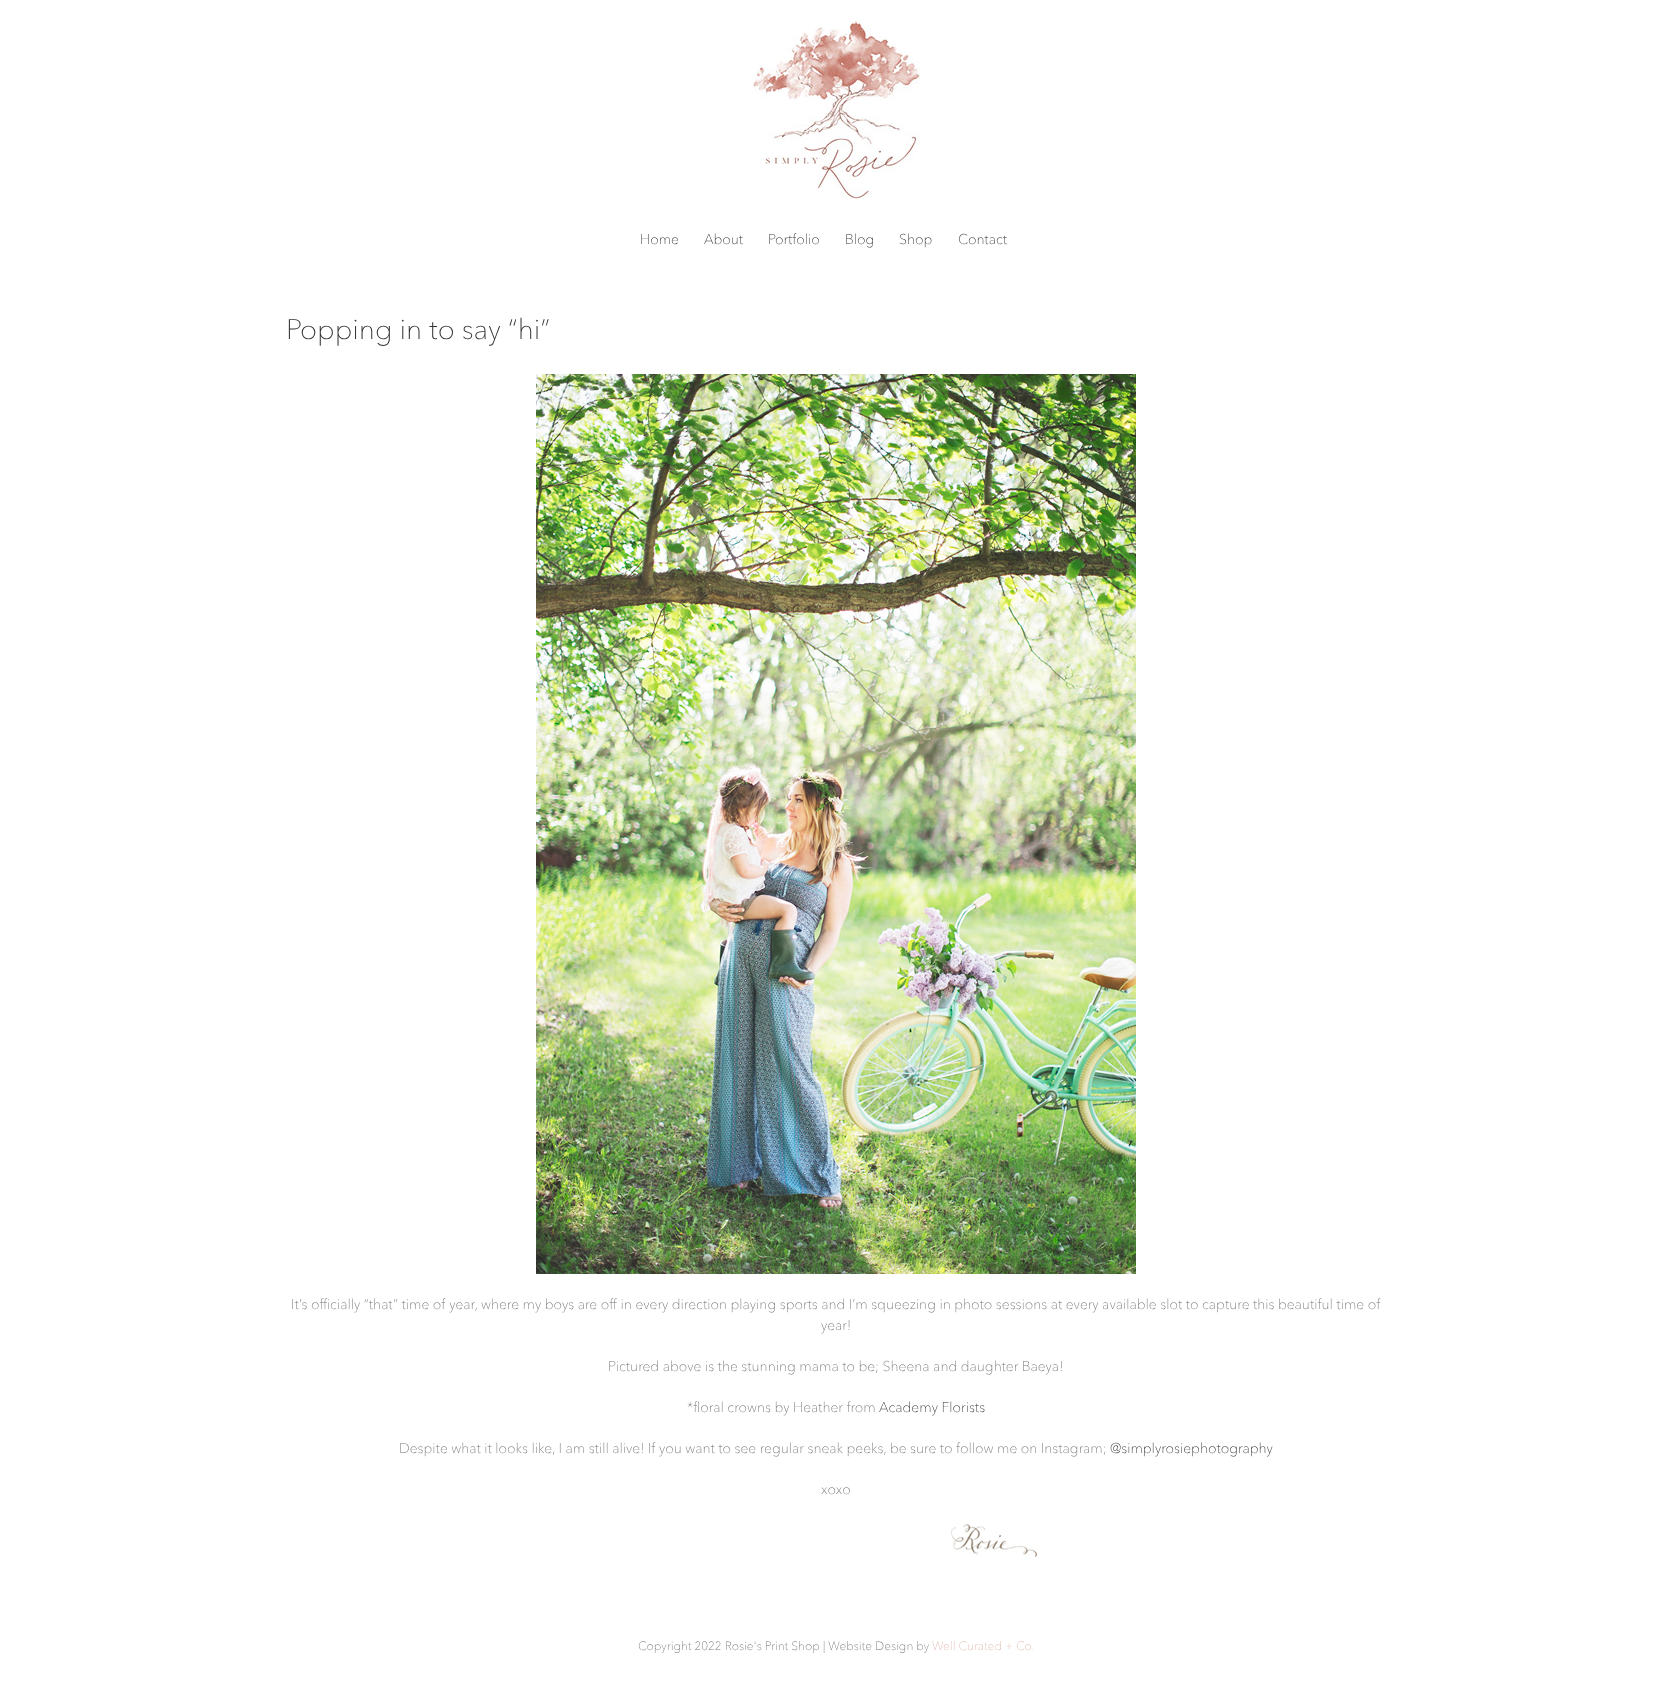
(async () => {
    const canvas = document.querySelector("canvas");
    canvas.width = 1672;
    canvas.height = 1698;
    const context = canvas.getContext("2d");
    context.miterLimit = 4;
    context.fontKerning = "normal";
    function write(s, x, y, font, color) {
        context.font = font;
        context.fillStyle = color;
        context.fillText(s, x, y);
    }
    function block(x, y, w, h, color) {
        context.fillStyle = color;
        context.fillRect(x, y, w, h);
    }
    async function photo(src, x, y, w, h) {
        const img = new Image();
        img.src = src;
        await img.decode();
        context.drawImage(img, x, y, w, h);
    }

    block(0, 0, 1672, 1698, "rgb(255, 255, 255)");
    await photo("media/1.png", 753, 20, 167, 179);
    write("Home", 640, 244, "100 14px Avenir Next", "rgb(51, 51, 51)");
    write("About", 704, 244, "100 14px Avenir Next", "rgb(51, 51, 51)");
    write("Portfolio", 768, 244, "100 14px Avenir Next", "rgb(51, 51, 51)");
    write("Blog", 845, 244, "100 14px Avenir Next", "rgb(51, 51, 51)");
    write("Shop", 899, 244, "100 14px Avenir Next", "rgb(51, 51, 51)");
    write("Contact", 958, 244, "100 14px Avenir Next", "rgb(51, 51, 51)");
    write("Popping in to say “hi”", 286, 339, "100 28px Avenir Next", "rgb(51, 51, 51)");
    await photo("media/2.png", 536, 374, 600, 900);
    write("It’s officially “that” time of year, where my boys are off in every direction playing sports and I’m squeezing in photo sessions at every available slot to capture this beautiful time of", 291, 1309, "100 14px Avenir Next", "rgb(116, 116, 116)");
    write("year!", 821, 1330, "100 14px Avenir Next", "rgb(116, 116, 116)");
    write("Pictured above is the stunning mama to be; Sheena and daughter Baeya!", 608, 1371, "100 14px Avenir Next", "rgb(116, 116, 116)");
    write("*floral crowns by Heather from", 687, 1412, "100 14px Avenir Next", "rgb(116, 116, 116)");
    write("Academy Florists", 879, 1412, "100 14px Avenir Next", "rgb(51, 51, 51)");
    write("Despite what it looks like, I am still alive! If you want to see regular sneak peeks, be sure to follow me on Instagram;", 399, 1453, "100 14px Avenir Next", "rgb(116, 116, 116)");
    write("@simplyrosiephotography", 1110, 1453, "100 14px Avenir Next", "rgb(51, 51, 51)");
    write("xoxo", 821, 1494, "100 14px Avenir Next", "rgb(116, 116, 116)");
    await photo("media/3.png", 951, 1524, 86, 35);
    write("Copyright 2022 Rosie's Print Shop | Website Design by", 638, 1650, "100 12px Avenir Next", "rgb(116, 116, 116)");
    write("Well Curated + Co.", 932, 1650, "100 12px Avenir Next", "rgb(224, 184, 176)");
})();
